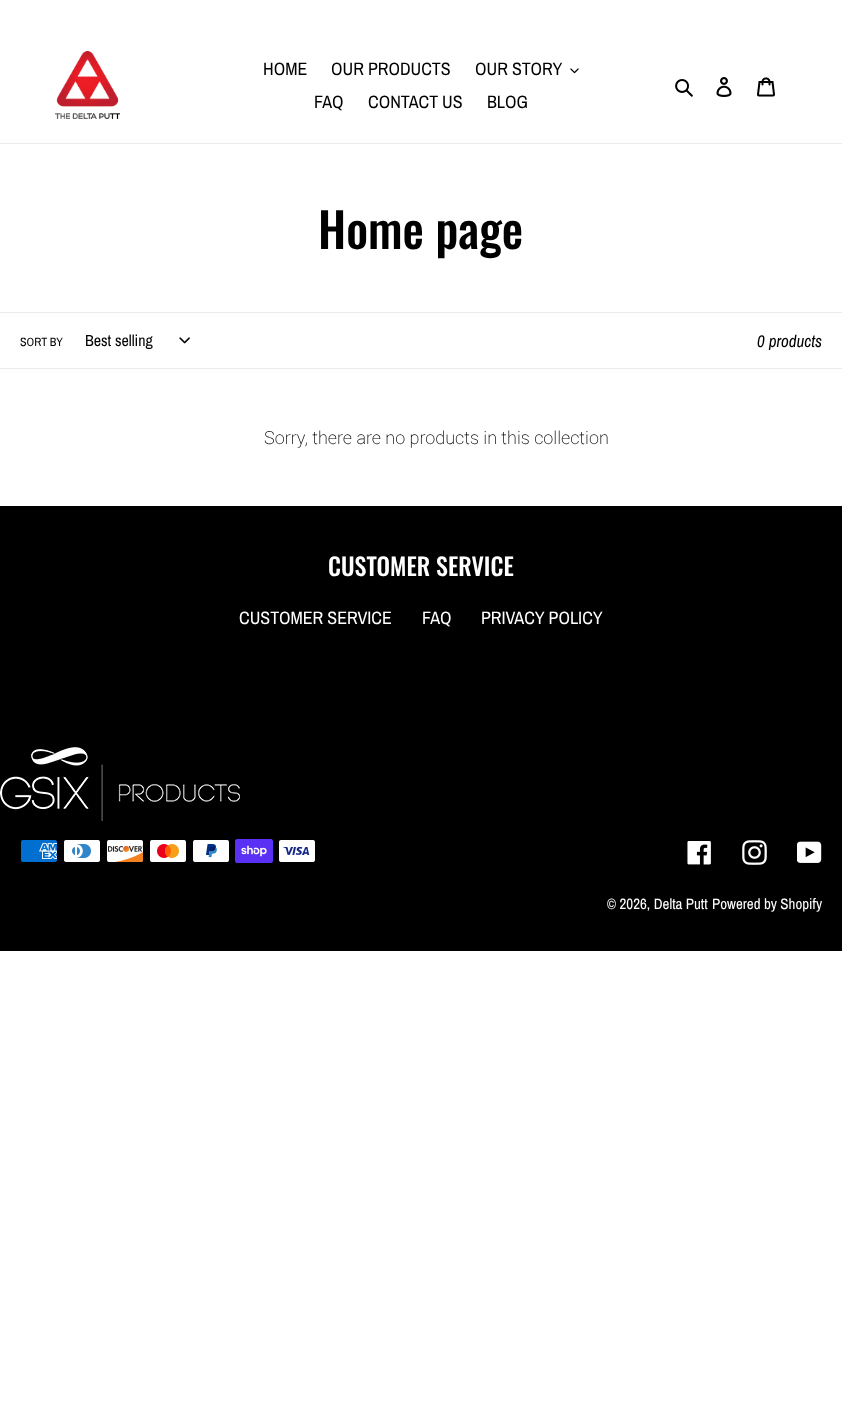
(async () => {
    const canvas = document.querySelector("canvas");
    canvas.width = 842;
    canvas.height = 1416;
    const context = canvas.getContext("2d");
    context.miterLimit = 4;
    context.fontKerning = "normal";
    function write(s, x, y, font, color) {
        context.font = font;
        context.fillStyle = color;
        context.fillText(s, x, y);
    }
    function block(x, y, w, h, color) {
        context.fillStyle = color;
        context.fillRect(x, y, w, h);
    }
    async function photo(src, x, y, w, h) {
        const img = new Image();
        img.src = src;
        await img.decode();
        context.drawImage(img, x, y, w, h);
    }

    block(0, 0, 842, 1416, "rgb(255, 255, 255)");
    block(0, 143, 842, 1, "rgb(235, 235, 235)");
    await photo("media/1.png", 55, 51, 65, 68);
    write("HOME", 263, 75, "18px Archivo Narrow", "rgb(0, 0, 0)");
    write("OUR PRODUCTS", 331, 75, "18px Archivo Narrow", "rgb(0, 0, 0)");
    write("OUR STORY", 475, 75, "18px Archivo Narrow", "rgb(0, 0, 0)");
    await photo("media/2.png", 570, 68, 9, 6);
    write("FAQ", 314, 108, "18px Archivo Narrow", "rgb(0, 0, 0)");
    write("CONTACT US", 368, 108, "18px Archivo Narrow", "rgb(0, 0, 0)");
    write("BLOG", 487, 108, "18px Archivo Narrow", "rgb(0, 0, 0)");
    await photo("media/3.png", 675, 79, 18, 18);
    await photo("media/4.png", 716, 77, 16, 20);
    await photo("media/5.png", 757, 77, 18, 20);
    write("Home page", 318, 249, "500 48px Oswald", "rgb(0, 0, 0)");
    block(0, 312, 842, 1, "rgb(235, 235, 235)");
    block(0, 368, 842, 1, "rgb(235, 235, 235)");
    write("SORT BY", 20, 346, "12px Archivo Narrow", "rgb(0, 0, 0)");
    write("Best selling", 85, 346, "16px Archivo Narrow", "rgb(0, 0, 0)");
    await photo("media/6.png", 179, 337, 11, 7);
    write("0 products", 757, 347, "italic 17px Archivo Narrow", "rgb(0, 0, 0)");
    write("Sorry, there are no products in this collection", 264, 444, "200 18px Roboto", "rgb(0, 0, 0)");
    block(0, 506, 842, 445, "rgb(0, 0, 0)");
    write("CUSTOMER SERVICE", 328, 576, "500 24px Oswald", "rgb(255, 255, 255)");
    write("CUSTOMER SERVICE", 239, 624, "18px Archivo Narrow", "rgb(255, 255, 255)");
    write("FAQ", 422, 624, "18px Archivo Narrow", "rgb(255, 255, 255)");
    write("PRIVACY POLICY", 481, 624, "18px Archivo Narrow", "rgb(255, 255, 255)");
    await photo("media/7.png", 0, 747, 240, 74);
    await photo("media/8.png", 21, 840, 36, 22);
    await photo("media/9.png", 64, 840, 36, 22);
    await photo("media/10.png", 107, 840, 37, 22);
    await photo("media/11.png", 150, 840, 36, 22);
    await photo("media/12.png", 193, 840, 36, 22);
    await photo("media/13.png", 235, 839, 38, 24);
    await photo("media/14.png", 279, 840, 36, 22);
    await photo("media/15.png", 687, 841, 24, 24);
    await photo("media/16.png", 742, 840, 25, 25);
    await photo("media/17.png", 797, 841, 25, 22);
    write("© 2026, Delta Putt", 607, 909, "15px Archivo Narrow", "rgb(255, 255, 255)");
    write("Powered by Shopify", 712, 909, "15px Archivo Narrow", "rgb(255, 255, 255)");
})();
